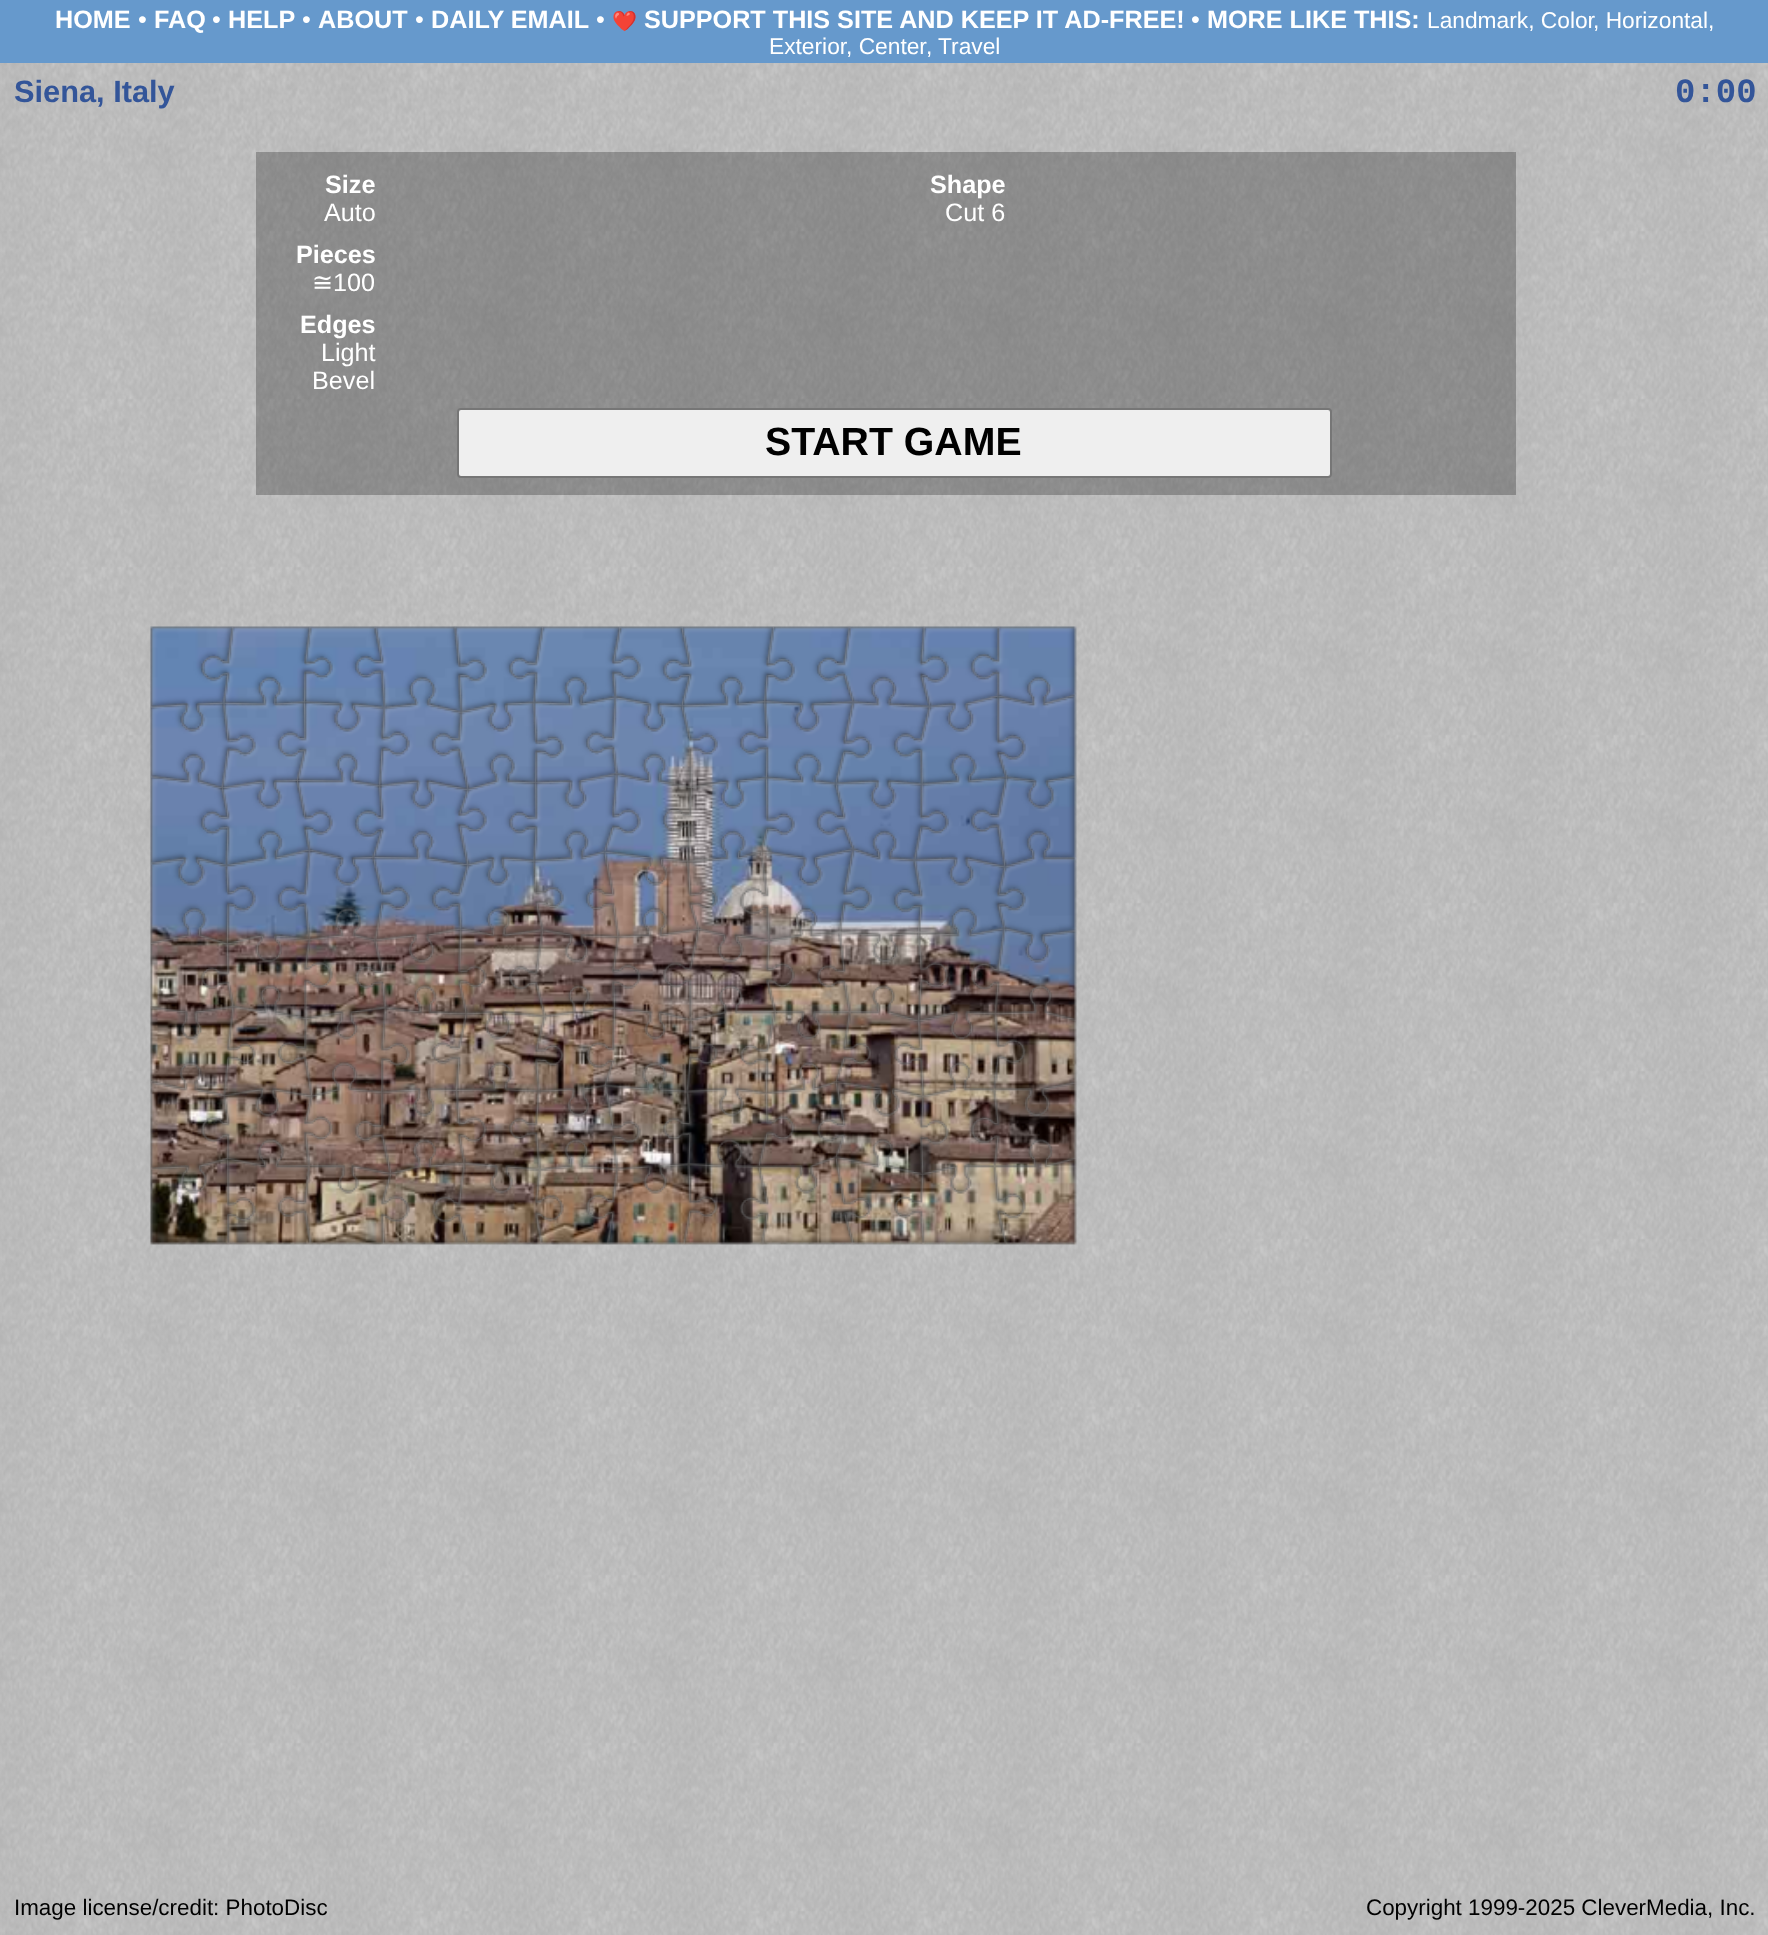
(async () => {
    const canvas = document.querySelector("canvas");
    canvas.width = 1768;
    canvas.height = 1935;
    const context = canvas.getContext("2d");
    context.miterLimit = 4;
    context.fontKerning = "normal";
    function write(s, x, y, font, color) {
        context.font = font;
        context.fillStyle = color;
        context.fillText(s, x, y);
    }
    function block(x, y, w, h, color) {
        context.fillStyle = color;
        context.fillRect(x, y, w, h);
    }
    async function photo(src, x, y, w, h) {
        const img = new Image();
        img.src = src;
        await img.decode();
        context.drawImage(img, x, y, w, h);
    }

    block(0, 0, 1768, 1935, "rgb(102, 153, 204)");
    write("HOME", 55, 28, "bold 25.2px Liberation Sans", "rgb(255, 255, 255)");
    write("•", 138, 28, "25.2px Liberation Sans", "rgb(255, 255, 255)");
    write("FAQ", 154, 28, "bold 25.2px Liberation Sans", "rgb(255, 255, 255)");
    write("•", 212, 28, "25.2px Liberation Sans", "rgb(255, 255, 255)");
    write("HELP", 228, 28, "bold 25.2px Liberation Sans", "rgb(255, 255, 255)");
    write("•", 302, 28, "25.2px Liberation Sans", "rgb(255, 255, 255)");
    write("ABOUT", 318, 28, "bold 25.2px Liberation Sans", "rgb(255, 255, 255)");
    write("•", 415, 28, "25.2px Liberation Sans", "rgb(255, 255, 255)");
    write("DAILY EMAIL", 431, 28, "bold 25.2px Liberation Sans", "rgb(255, 255, 255)");
    write("•", 596, 28, "25.2px Liberation Sans", "rgb(255, 255, 255)");
    write("❤️", 612, 28, "20px Noto Color Emoji", "rgb(255, 255, 255)");
    write("SUPPORT THIS SITE AND KEEP IT AD-FREE!", 644, 28, "bold 25.2px Liberation Sans", "rgb(255, 255, 255)");
    write("•", 1191, 28, "25.2px Liberation Sans", "rgb(255, 255, 255)");
    write("MORE LIKE THIS:", 1207, 28, "bold 25.2px Liberation Sans", "rgb(255, 255, 255)");
    write("Landmark, Color", 1427, 28, "22.75px Liberation Sans", "rgb(255, 255, 255)");
    write(", Horizontal,", 1593, 28, "22.75px Liberation Sans", "rgb(255, 255, 255)");
    write("Exterior", 769, 54, "22.75px Liberation Sans", "rgb(255, 255, 255)");
    write(", Center", 846, 54, "22.75px Liberation Sans", "rgb(255, 255, 255)");
    write(",", 926, 54, "22.75px Liberation Sans", "rgb(255, 255, 255)");
    write("Travel", 938, 54, "22.75px Liberation Sans", "rgb(255, 255, 255)");
    await photo("media/1.png", 0, 63, 1768, 1872);
    await photo("media/2.png", 150, 626, 84, 104);
    await photo("media/3.png", 201, 626, 130, 80);
    await photo("media/4.png", 304, 626, 82, 104);
    await photo("media/5.png", 355, 626, 130, 87);
    await photo("media/6.png", 454, 626, 89, 104);
    await photo("media/7.png", 509, 626, 130, 80);
    await photo("media/8.png", 612, 626, 80, 104);
    await photo("media/9.png", 663, 626, 130, 82);
    await photo("media/10.png", 764, 626, 91, 104);
    await photo("media/11.png", 817, 626, 130, 82);
    await photo("media/12.png", 920, 626, 80, 104);
    await photo("media/13.png", 971, 626, 106, 80);
    await photo("media/14.png", 150, 702, 104, 88);
    await photo("media/15.png", 222, 677, 85, 130);
    await photo("media/16.png", 278, 701, 130, 86);
    await photo("media/17.png", 379, 677, 91, 130);
    await photo("media/18.png", 432, 701, 130, 91);
    await photo("media/19.png", 533, 677, 85, 130);
    await photo("media/20.png", 586, 696, 130, 92);
    await photo("media/21.png", 681, 677, 88, 130);
    await photo("media/22.png", 740, 701, 130, 84);
    await photo("media/23.png", 834, 677, 97, 130);
    await photo("media/24.png", 894, 695, 130, 91);
    await photo("media/25.png", 997, 677, 80, 130);
    await photo("media/26.png", 150, 754, 80, 130);
    await photo("media/27.png", 201, 780, 130, 87);
    await photo("media/28.png", 297, 754, 87, 130);
    await photo("media/29.png", 355, 780, 130, 87);
    await photo("media/30.png", 458, 754, 80, 130);
    await photo("media/31.png", 509, 773, 130, 89);
    await photo("media/32.png", 603, 754, 89, 130);
    await photo("media/33.png", 663, 777, 130, 87);
    await photo("media/34.png", 761, 754, 94, 130);
    await photo("media/35.png", 817, 780, 130, 82);
    await photo("media/36.png", 913, 754, 94, 130);
    await photo("media/37.png", 971, 775, 106, 94);
    await photo("media/38.png", 150, 857, 104, 89);
    await photo("media/39.png", 225, 831, 86, 130);
    await photo("media/40.png", 278, 849, 130, 93);
    await photo("media/41.png", 372, 831, 98, 130);
    await photo("media/42.png", 432, 857, 130, 80);
    await photo("media/43.png", 533, 831, 87, 130);
    await photo("media/44.png", 586, 851, 130, 88);
    await photo("media/45.png", 687, 831, 84, 130);
    await photo("media/46.png", 740, 848, 130, 94);
    await photo("media/47.png", 839, 831, 84, 130);
    await photo("media/48.png", 894, 857, 130, 80);
    await photo("media/49.png", 997, 831, 80, 130);
    await photo("media/50.png", 150, 908, 85, 130);
    await photo("media/51.png", 201, 934, 130, 85);
    await photo("media/52.png", 304, 908, 83, 130);
    await photo("media/53.png", 355, 928, 130, 88);
    await photo("media/54.png", 458, 908, 89, 130);
    await photo("media/55.png", 509, 929, 130, 89);
    await photo("media/56.png", 612, 908, 88, 130);
    await photo("media/57.png", 663, 929, 130, 92);
    await photo("media/58.png", 766, 908, 85, 130);
    await photo("media/59.png", 817, 931, 130, 92);
    await photo("media/60.png", 917, 908, 88, 130);
    await photo("media/61.png", 972, 927, 105, 94);
    await photo("media/62.png", 150, 1006, 104, 90);
    await photo("media/63.png", 223, 985, 91, 130);
    await photo("media/64.png", 278, 1006, 130, 92);
    await photo("media/65.png", 381, 985, 87, 130);
    await photo("media/66.png", 432, 1011, 130, 82);
    await photo("media/67.png", 535, 985, 82, 130);
    await photo("media/68.png", 586, 1007, 130, 86);
    await photo("media/69.png", 686, 985, 90, 130);
    await photo("media/70.png", 740, 1011, 130, 84);
    await photo("media/71.png", 836, 985, 89, 130);
    await photo("media/72.png", 894, 1011, 130, 87);
    await photo("media/73.png", 993, 985, 84, 130);
    await photo("media/74.png", 150, 1062, 80, 130);
    await photo("media/75.png", 201, 1088, 130, 80);
    await photo("media/76.png", 304, 1062, 88, 130);
    await photo("media/77.png", 355, 1088, 130, 87);
    await photo("media/78.png", 456, 1062, 85, 130);
    await photo("media/79.png", 509, 1085, 130, 87);
    await photo("media/80.png", 605, 1062, 87, 130);
    await photo("media/81.png", 663, 1088, 130, 80);
    await photo("media/82.png", 757, 1062, 89, 130);
    await photo("media/83.png", 817, 1081, 130, 94);
    await photo("media/84.png", 920, 1062, 80, 130);
    await photo("media/85.png", 971, 1081, 106, 87);
    await photo("media/86.png", 150, 1158, 104, 87);
    await photo("media/87.png", 227, 1139, 85, 106);
    await photo("media/88.png", 278, 1165, 130, 80);
    await photo("media/89.png", 381, 1139, 87, 106);
    await photo("media/90.png", 432, 1162, 130, 83);
    await photo("media/91.png", 535, 1139, 84, 106);
    await photo("media/92.png", 586, 1163, 130, 82);
    await photo("media/93.png", 684, 1139, 85, 106);
    await photo("media/94.png", 740, 1156, 130, 89);
    await photo("media/95.png", 834, 1139, 91, 106);
    await photo("media/96.png", 894, 1165, 130, 80);
    await photo("media/97.png", 993, 1139, 84, 106);
    write("Siena, Italy", 14, 102, "bold 30.75px Liberation Sans", "rgb(51, 85, 153)");
    write("0:00", 1675, 102, "bold 34px Liberation Mono", "rgb(51, 85, 153)");
    block(256, 152, 1260, 343, "rgba(0, 0, 0, 0.25)");
    write("Size", 325, 193, "bold 25.2px Liberation Sans", "rgb(255, 255, 255)");
    write("Auto", 324, 221, "25.2px Liberation Sans", "rgb(255, 255, 255)");
    write("Pieces", 296, 263, "bold 25.2px Liberation Sans", "rgb(255, 255, 255)");
    write("≅", 312, 291, "25.2px DejaVu Sans", "rgb(255, 255, 255)");
    write("100", 333, 291, "25.2px Liberation Sans", "rgb(255, 255, 255)");
    write("Edges", 300, 333, "bold 25.2px Liberation Sans", "rgb(255, 255, 255)");
    write("Light", 321, 361, "25.2px Liberation Sans", "rgb(255, 255, 255)");
    write("Bevel", 312, 389, "25.2px Liberation Sans", "rgb(255, 255, 255)");
    write("Shape", 930, 193, "bold 25.2px Liberation Sans", "rgb(255, 255, 255)");
    write("Cut 6", 945, 221, "25.2px Liberation Sans", "rgb(255, 255, 255)");
    context.fillStyle = "rgb(239, 239, 239)";
    context.beginPath();
    context.roundRect(458, 409, 873, 68, 3);
    context.fill();
    context.strokeStyle = "rgb(118, 118, 118)";
    context.lineWidth = 2;
    context.stroke();
    write("START GAME", 765, 455, "bold 39.25px Liberation Sans", "rgb(0, 0, 0)");
    write("Image license/credit: PhotoDisc", 14, 1915, "22.4px Liberation Sans", "rgb(0, 0, 0)");
    write("Copyright 1999-2025 CleverMedia, Inc.", 1366, 1915, "22.4px Liberation Sans", "rgb(0, 0, 0)");
})();
